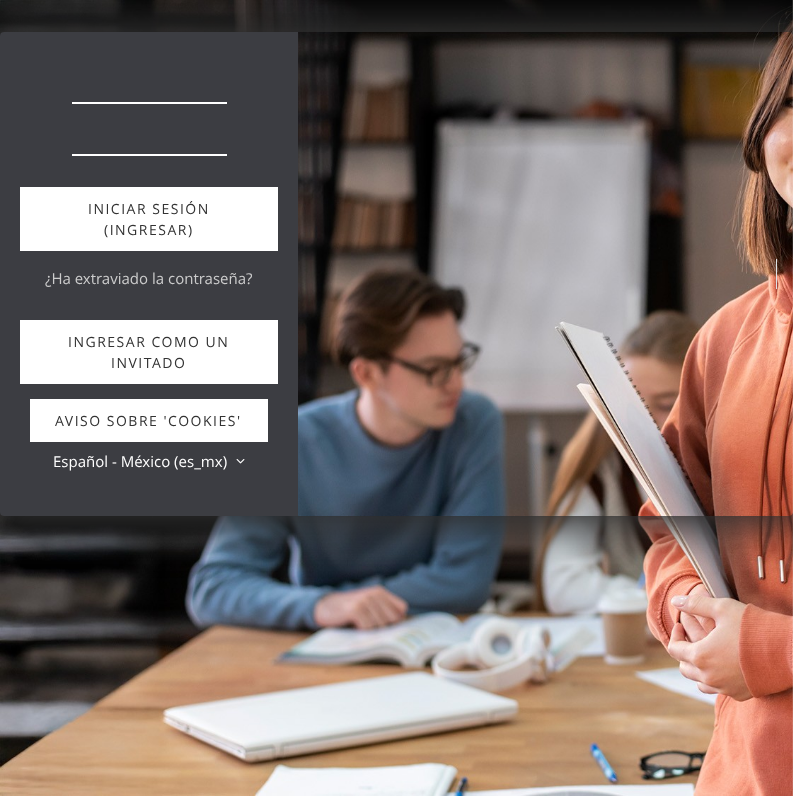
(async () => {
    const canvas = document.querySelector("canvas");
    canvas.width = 793;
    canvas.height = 796;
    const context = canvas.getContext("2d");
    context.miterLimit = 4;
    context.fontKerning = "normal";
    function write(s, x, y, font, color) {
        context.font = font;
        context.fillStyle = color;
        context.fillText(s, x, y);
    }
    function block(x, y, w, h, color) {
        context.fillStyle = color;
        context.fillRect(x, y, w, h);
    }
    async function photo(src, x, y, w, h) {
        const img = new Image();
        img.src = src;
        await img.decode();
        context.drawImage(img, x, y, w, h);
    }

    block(0, 0, 793, 796, "rgb(255, 255, 255)");
    await photo("media/1.png", 0, 0, 793, 796);
    context.save();
    context.beginPath();
    context.moveTo(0, 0);
    context.lineTo(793, 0);
    context.lineTo(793, 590);
    context.lineTo(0, 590);
    context.closePath();
    context.moveTo(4, 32);
    context.lineTo(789, 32);
    context.bezierCurveTo(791, 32, 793, 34, 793, 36);
    context.lineTo(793, 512);
    context.bezierCurveTo(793, 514, 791, 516, 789, 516);
    context.lineTo(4, 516);
    context.bezierCurveTo(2, 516, 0, 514, 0, 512);
    context.lineTo(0, 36);
    context.bezierCurveTo(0, 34, 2, 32, 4, 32);
    context.closePath();
    context.clip("evenodd");
    context.fillStyle = "rgb(47, 47, 47)";
    context.filter = "blur(20px)";
    context.beginPath();
    context.roundRect(-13, 19, 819, 510, 17);
    context.fill();
    context.filter = "none";
    context.restore();
    context.fillStyle = "rgb(60, 61, 66)";
    context.beginPath();
    context.roundRect(0, 32, 298, 484, [4, 0, 0, 4]);
    context.fill();
    block(72, 102, 155, 2, "rgb(255, 255, 255)");
    block(72, 154, 155, 2, "rgb(255, 255, 255)");
    block(20, 187, 258, 64, "rgb(255, 255, 255)");
    context.letterSpacing = "1.5px";
    write("INICIAR SESIÓN", 88, 214, "14px Open Sans", "rgb(51, 51, 51)");
    write("(INGRESAR)", 104, 235, "14px Open Sans", "rgb(51, 51, 51)");
    context.letterSpacing = "0px";
    write("¿Ha extraviado la contraseña?", 45, 284, "15px Open Sans", "rgb(204, 204, 204)");
    block(20, 320, 258, 64, "rgb(255, 255, 255)");
    context.letterSpacing = "1.5px";
    write("INGRESAR COMO UN", 68, 347, "14px Open Sans", "rgb(51, 51, 51)");
    write("INVITADO", 111, 368, "14px Open Sans", "rgb(51, 51, 51)");
    block(30, 399, 238, 43, "rgb(255, 255, 255)");
    write("AVISO SOBRE 'COOKIES'", 55, 426, "14px Open Sans", "rgb(51, 51, 51)");
    context.letterSpacing = "0px";
    write("Español - México (es_mx)", 53, 467, "15px Open Sans", "rgb(255, 255, 255)");
    await photo("media/2.png", 236, 459, 9, 5);
    block(776, 259, 1, 30, "rgb(222, 226, 230)");
})();
